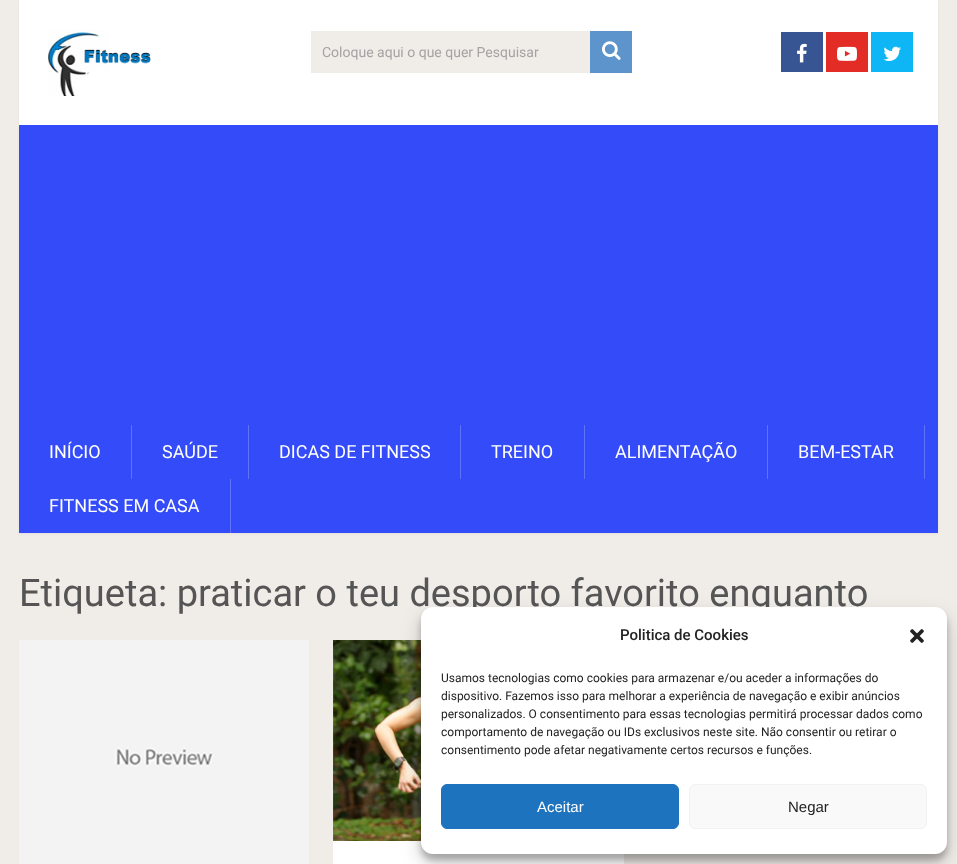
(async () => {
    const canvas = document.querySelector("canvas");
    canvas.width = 957;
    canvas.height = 864;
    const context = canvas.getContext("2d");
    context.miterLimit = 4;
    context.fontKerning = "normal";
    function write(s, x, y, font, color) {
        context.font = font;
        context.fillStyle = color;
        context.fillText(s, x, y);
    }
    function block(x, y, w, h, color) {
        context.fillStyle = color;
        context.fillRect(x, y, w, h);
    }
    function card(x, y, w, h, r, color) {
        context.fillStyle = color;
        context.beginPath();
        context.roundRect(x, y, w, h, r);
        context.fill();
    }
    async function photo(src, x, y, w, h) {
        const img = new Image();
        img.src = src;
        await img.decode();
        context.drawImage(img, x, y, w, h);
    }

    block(0, 0, 957, 864, "rgb(240, 237, 233)");
    context.fillStyle = "rgba(0, 0, 0, 0.05)";
    context.filter = "blur(1px)";
    context.beginPath();
    context.rect(19, 1, 919, 533);
    context.fill();
    context.filter = "none";
    block(19, 0, 919, 125, "rgb(255, 255, 255)");
    await photo("media/1.png", 48, 30, 103, 66);
    block(312, 32, 278, 40, "rgb(240, 237, 233)");
    context.strokeStyle = "rgb(239, 235, 231)";
    context.strokeRect(311.5, 31.5, 320, 41);
    write("Coloque aqui o que quer Pesquisar", 322, 57, "14px Roboto", "rgb(164, 164, 164)");
    block(590, 31, 42, 42, "rgb(93, 148, 204)");
    await photo("media/2.png", 602, 41, 19, 19);
    block(781, 32, 42, 40, "rgb(55, 85, 147)");
    await photo("media/3.png", 797, 43, 10, 20);
    block(826, 32, 42, 40, "rgb(227, 44, 38)");
    await photo("media/4.png", 837, 46, 20, 15);
    block(871, 32, 42, 40, "rgb(14, 182, 246)");
    await photo("media/5.png", 883, 46, 18, 15);
    block(19, 125, 919, 408, "rgb(52, 75, 249)");
    block(131, 425, 1, 54, "rgb(97, 115, 250)");
    write("INÍCIO", 49, 458, "18px Roboto", "rgb(255, 255, 255)");
    block(248, 425, 1, 54, "rgb(97, 115, 250)");
    write("SAÚDE", 162, 458, "18px Roboto", "rgb(255, 255, 255)");
    block(460, 425, 1, 54, "rgb(97, 115, 250)");
    write("DICAS DE FITNESS", 279, 458, "18px Roboto", "rgb(255, 255, 255)");
    block(584, 425, 1, 54, "rgb(97, 115, 250)");
    write("TREINO", 491, 458, "18px Roboto", "rgb(255, 255, 255)");
    block(767, 425, 1, 54, "rgb(97, 115, 250)");
    write("ALIMENTAÇÃO", 615, 458, "18px Roboto", "rgb(255, 255, 255)");
    block(924, 425, 1, 54, "rgb(97, 115, 250)");
    write("BEM-ESTAR", 798, 458, "18px Roboto", "rgb(255, 255, 255)");
    block(230, 479, 1, 54, "rgb(97, 115, 250)");
    write("FITNESS EM CASA", 49, 512, "18px Roboto", "rgb(255, 255, 255)");
    write("Etiqueta: praticar o teu desporto favorito enquanto", 19, 606, "38px Roboto", "rgb(85, 85, 85)");
    await photo("media/6.png", 19, 640, 290, 224);
    block(333, 841, 291, 23, "rgb(255, 255, 255)");
    await photo("media/7.png", 333, 640, 88, 201);
    context.fillStyle = "rgba(0, 0, 0, 0.23)";
    context.filter = "blur(3px)";
    context.beginPath();
    context.roundRect(421, 613, 526, 247, 12);
    context.fill();
    context.filter = "none";
    context.fillStyle = "rgba(0, 0, 0, 0.19)";
    context.filter = "blur(10px)";
    context.beginPath();
    context.roundRect(421, 617, 526, 247, 12);
    context.fill();
    context.filter = "none";
    card(421, 607, 526, 247, 12, "rgb(255, 255, 255)");
    write("Politica de Cookies", 620, 640, "500 15px Roboto", "rgb(34, 34, 34)");
    await photo("media/8.png", 910, 629, 14, 14);
    write("Usamos tecnologias como cookies para armazenar e/ou aceder a informações do", 441, 682, "12px Roboto", "rgb(34, 34, 34)");
    write("dispositivo. Fazemos isso para melhorar a experiência de navegação e exibir anúncios", 441, 700, "12px Roboto", "rgb(34, 34, 34)");
    write("personalizados. O consentimento para essas tecnologias permitirá processar dados como", 441, 718, "12px Roboto", "rgb(34, 34, 34)");
    write("comportamento de navegação ou IDs exclusivos neste site. Não consentir ou retirar o", 441, 736, "12px Roboto", "rgb(34, 34, 34)");
    write("consentimento pode afetar negativamente certos recursos e funções.", 441, 754, "12px Roboto", "rgb(34, 34, 34)");
    context.fillStyle = "rgb(30, 115, 190)";
    context.beginPath();
    context.roundRect(441.5, 784.5, 237, 44, 5.5);
    context.fill();
    context.strokeStyle = "rgb(30, 115, 190)";
    context.stroke();
    write("Aceitar", 537, 812, "15px Liberation Sans", "rgb(255, 255, 255)");
    context.fillStyle = "rgb(249, 249, 249)";
    context.beginPath();
    context.roundRect(689.5, 784.5, 237, 44, 5.5);
    context.fill();
    context.strokeStyle = "rgb(242, 242, 242)";
    context.stroke();
    write("Negar", 788, 812, "15px Liberation Sans", "rgb(34, 34, 34)");
})();
